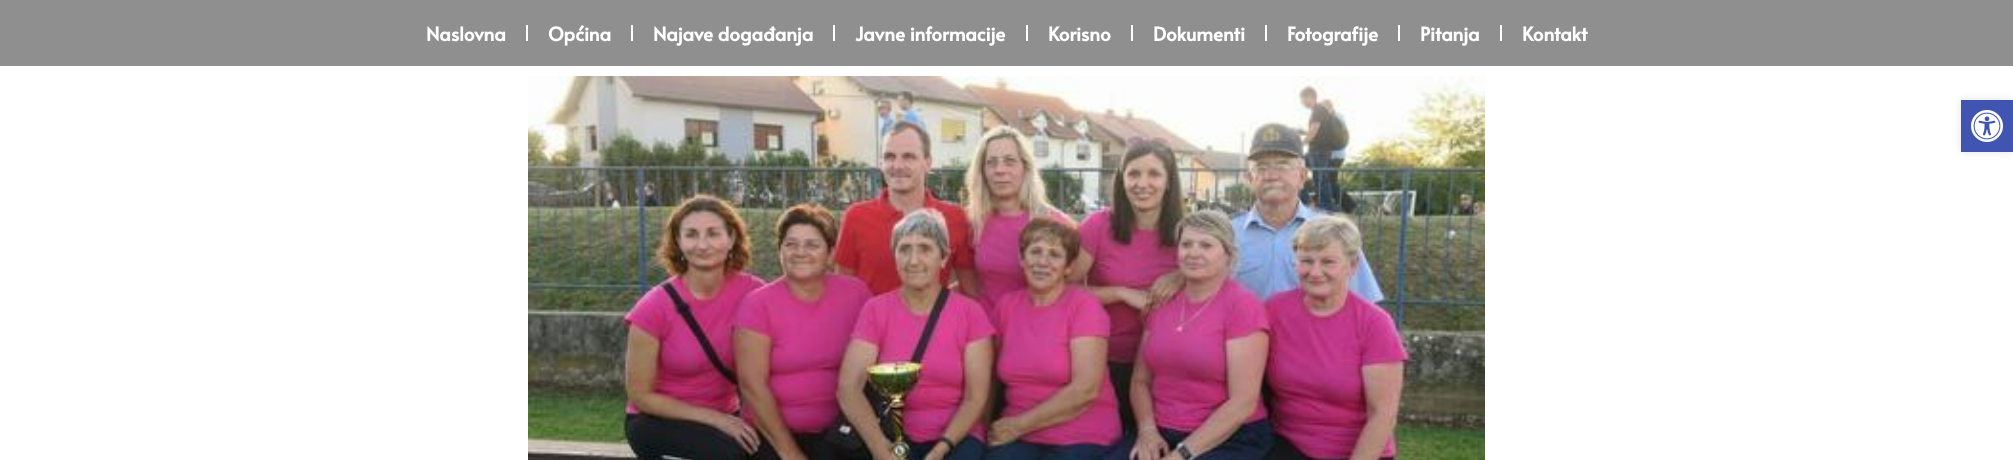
(async () => {
    const canvas = document.querySelector("canvas");
    canvas.width = 2013;
    canvas.height = 460;
    const context = canvas.getContext("2d");
    context.miterLimit = 4;
    context.fontKerning = "normal";
    function write(s, x, y, font, color) {
        context.font = font;
        context.fillStyle = color;
        context.fillText(s, x, y);
    }
    function block(x, y, w, h, color) {
        context.fillStyle = color;
        context.fillRect(x, y, w, h);
    }
    async function photo(src, x, y, w, h) {
        const img = new Image();
        img.src = src;
        await img.decode();
        context.drawImage(img, x, y, w, h);
    }

    block(0, 0, 2013, 460, "rgb(255, 255, 255)");
    block(0, 0, 2013, 66, "rgb(143, 143, 143)");
    write("Naslovna", 426, 41, "bold 19px Alata", "rgb(255, 255, 255)");
    block(526, 25, 2, 16, "rgb(255, 255, 255)");
    write("Općina", 548, 41, "bold 19px Alata", "rgb(255, 255, 255)");
    block(631, 25, 2, 16, "rgb(255, 255, 255)");
    write("Najave događanja", 653, 41, "bold 19px Alata", "rgb(255, 255, 255)");
    block(833, 25, 2, 16, "rgb(255, 255, 255)");
    write("Javne informacije", 855, 41, "bold 19px Alata", "rgb(255, 255, 255)");
    block(1026, 25, 2, 16, "rgb(255, 255, 255)");
    write("Korisno", 1048, 41, "bold 19px Alata", "rgb(255, 255, 255)");
    block(1131, 25, 2, 16, "rgb(255, 255, 255)");
    write("Dokumenti", 1153, 41, "bold 19px Alata", "rgb(255, 255, 255)");
    block(1265, 25, 2, 16, "rgb(255, 255, 255)");
    write("Fotografije", 1287, 41, "bold 19px Alata", "rgb(255, 255, 255)");
    block(1398, 25, 2, 16, "rgb(255, 255, 255)");
    write("Pitanja", 1420, 41, "bold 19px Alata", "rgb(255, 255, 255)");
    block(1500, 25, 2, 16, "rgb(255, 255, 255)");
    write("Kontakt", 1522, 41, "bold 19px Alata", "rgb(255, 255, 255)");
    await photo("media/1.png", 528, 76, 957, 384);
    context.fillStyle = "rgba(0, 0, 0, 0.1)";
    context.filter = "blur(5px)";
    context.beginPath();
    context.rect(1961, 100, 52, 52);
    context.fill();
    context.filter = "none";
    block(1961, 100, 52, 52, "rgb(64, 84, 178)");
    await photo("media/2.png", 1971, 110, 32, 32);
})();
